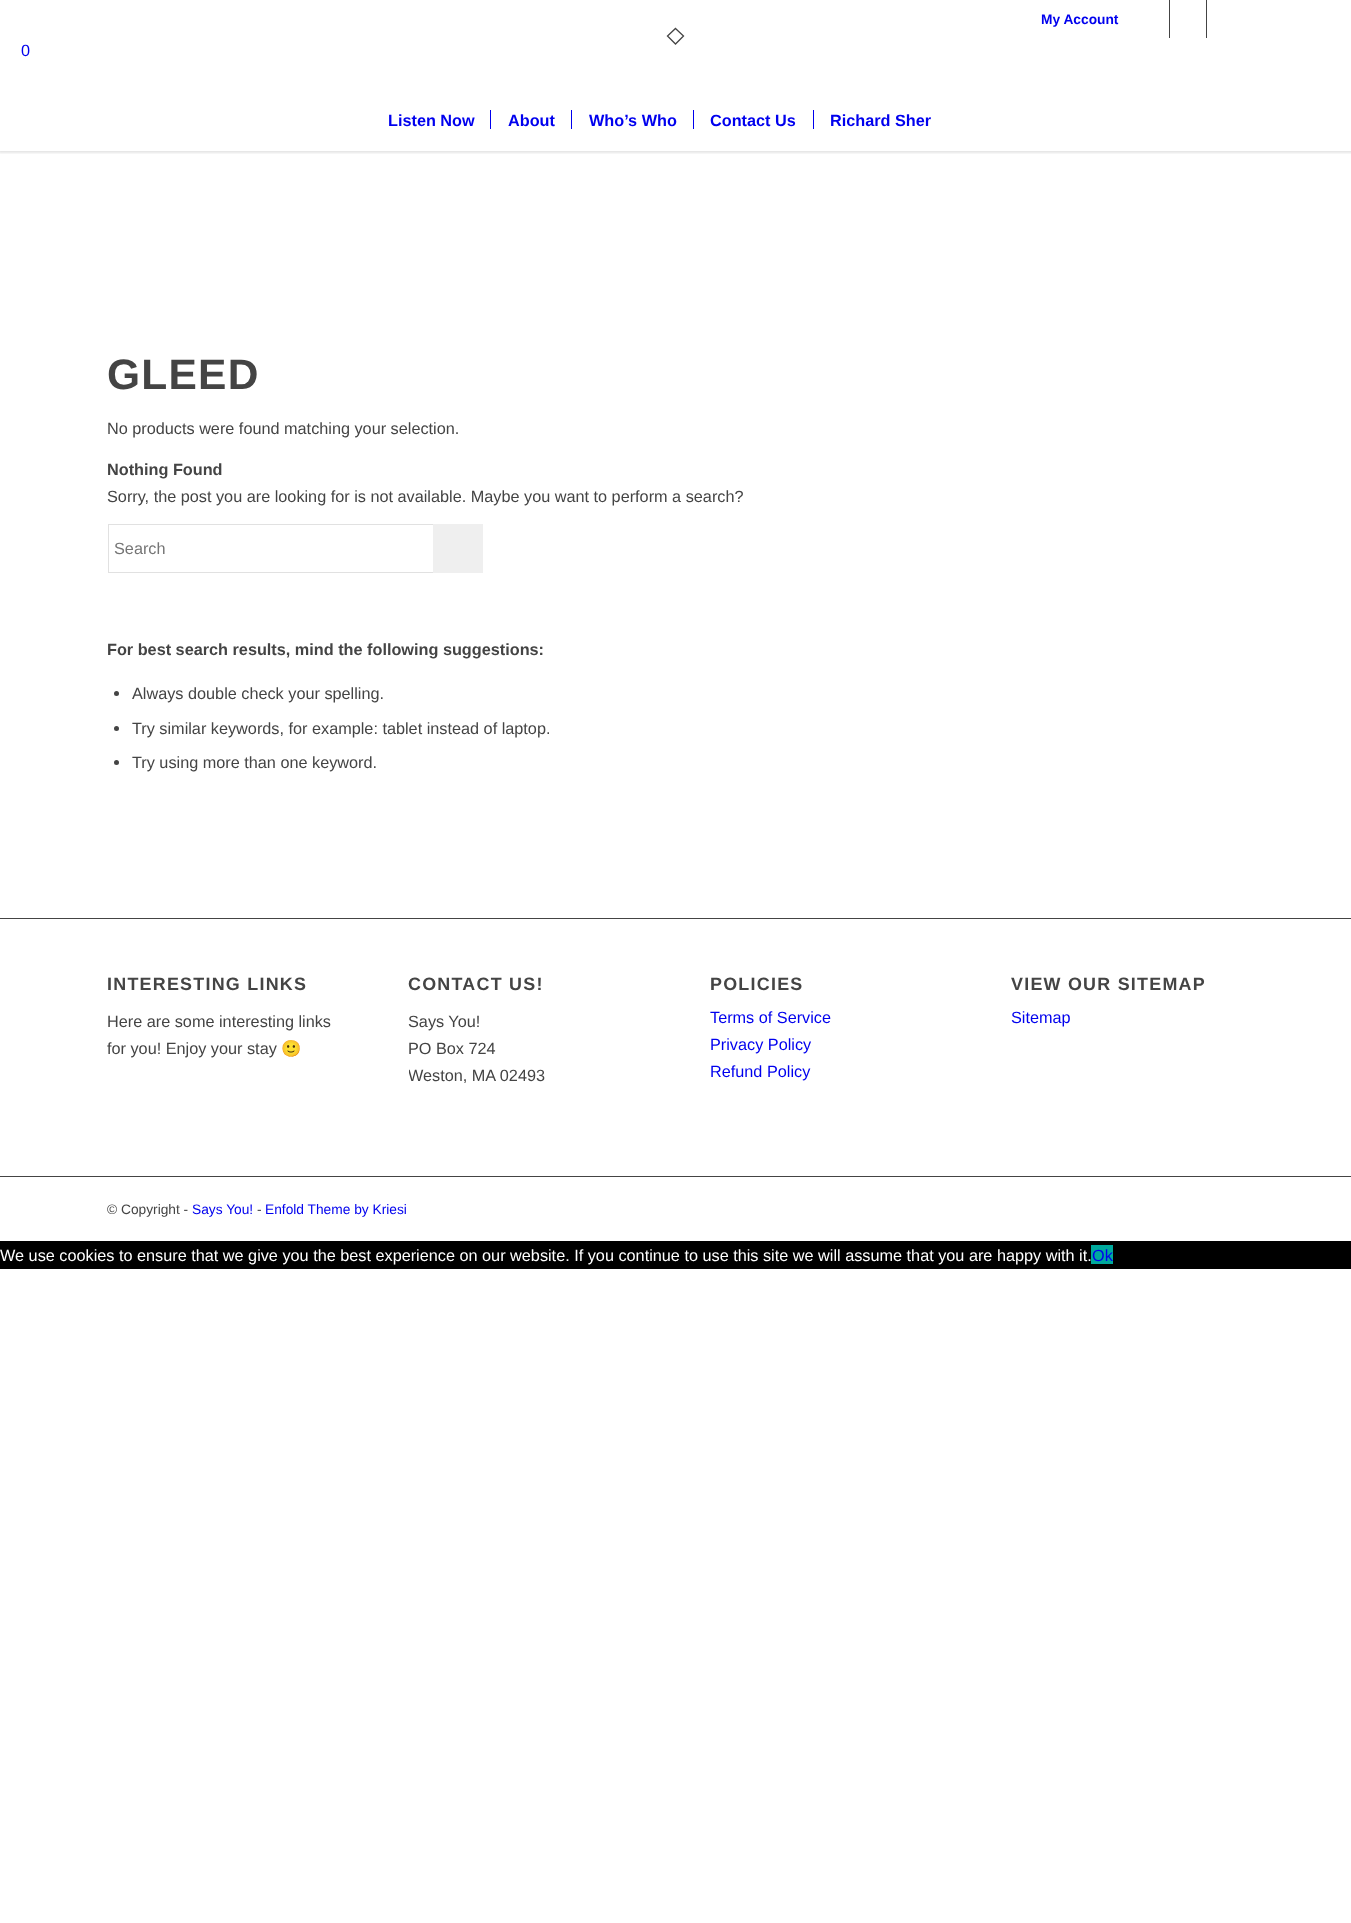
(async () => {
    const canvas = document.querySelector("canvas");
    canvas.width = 1351;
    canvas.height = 1923;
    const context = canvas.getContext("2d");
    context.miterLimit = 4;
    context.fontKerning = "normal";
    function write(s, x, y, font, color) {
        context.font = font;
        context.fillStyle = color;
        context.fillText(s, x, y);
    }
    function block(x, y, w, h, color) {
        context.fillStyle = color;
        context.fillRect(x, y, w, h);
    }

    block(0, 0, 1351, 1923, "rgb(255, 255, 255)");
    context.save();
    context.beginPath();
    context.rect(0, 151, 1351, 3);
    context.clip();
    context.fillStyle = "rgba(0, 0, 0, 0.1)";
    context.filter = "blur(1px)";
    context.beginPath();
    context.rect(-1, -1, 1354, 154);
    context.fill();
    context.filter = "none";
    context.restore();
    write("My Account", 1041, 24, "bold 13.75px Liberation Sans", "rgb(0, 0, 238)");
    block(1169, 0, 1, 38, "rgb(68, 68, 68)");
    block(1206, 0, 1, 38, "rgb(68, 68, 68)");
    context.beginPath();
    context.moveTo(675.5, 28.5);
    context.lineTo(683.5, 36);
    context.lineTo(675.5, 44);
    context.lineTo(667.5, 36);
    context.closePath();
    context.strokeStyle = "rgb(68, 68, 68)";
    context.lineWidth = 1.3;
    context.stroke();
    write("0", 21, 56, "16.25px Liberation Sans", "rgb(0, 0, 238)");
    write("Listen Now", 388, 126, "bold 16.25px Liberation Sans", "rgb(0, 0, 238)");
    write("About", 508, 126, "bold 16.25px Liberation Sans", "rgb(0, 0, 238)");
    block(490, 110, 1, 19, "rgb(0, 0, 238)");
    write("Who’s Who", 589, 126, "bold 16.25px Liberation Sans", "rgb(0, 0, 238)");
    block(571, 110, 1, 19, "rgb(0, 0, 238)");
    write("Contact Us", 710, 126, "bold 16.25px Liberation Sans", "rgb(0, 0, 238)");
    block(693, 110, 1, 19, "rgb(0, 0, 238)");
    write("Richard Sher", 830, 126, "bold 16.25px Liberation Sans", "rgb(0, 0, 238)");
    block(813, 110, 1, 19, "rgb(0, 0, 238)");
    context.letterSpacing = "1.25px";
    write("GLEED", 107, 389, "bold 42.5px Liberation Sans", "rgb(68, 68, 68)");
    context.letterSpacing = "0px";
    write("No products were found matching your selection.", 107, 434, "16.25px Liberation Sans", "rgb(68, 68, 68)");
    write("Nothing Found", 107, 475, "bold 16.25px Liberation Sans", "rgb(68, 68, 68)");
    write("Sorry, the post you are looking for is not available. Maybe you want to perform a search?", 107, 502, "16.25px Liberation Sans", "rgb(68, 68, 68)");
    context.strokeStyle = "rgb(225, 225, 225)";
    context.lineWidth = 1;
    context.strokeRect(108.5, 524.5, 374, 48);
    write("Search", 114, 554, "16.25px Liberation Sans", "rgb(117, 117, 117)");
    block(433, 524, 50, 49, "rgb(239, 239, 239)");
    write("For best search results, mind the following suggestions:", 107, 655, "bold 16.25px Liberation Sans", "rgb(68, 68, 68)");
    context.beginPath();
    context.arc(116.5, 693.5, 2.5, 0, Math.PI * 2);
    context.fill();
    write("Always double check your spelling.", 132, 699, "16.25px Liberation Sans", "rgb(68, 68, 68)");
    context.beginPath();
    context.arc(116.5, 728.5, 2.5, 0, Math.PI * 2);
    context.fill();
    write("Try similar keywords, for example: tablet instead of laptop.", 132, 734, "16.25px Liberation Sans", "rgb(68, 68, 68)");
    context.beginPath();
    context.arc(116.5, 762.5, 2.5, 0, Math.PI * 2);
    context.fill();
    write("Try using more than one keyword.", 132, 768, "16.25px Liberation Sans", "rgb(68, 68, 68)");
    block(0, 918, 1351, 1, "rgb(68, 68, 68)");
    context.letterSpacing = "1.25px";
    write("INTERESTING LINKS", 107, 990, "bold 17.9px Liberation Sans", "rgb(68, 68, 68)");
    context.letterSpacing = "0px";
    write("Here are some interesting links", 107, 1027, "16.25px Liberation Sans", "rgb(68, 68, 68)");
    write("for you! Enjoy your stay", 107, 1054, "16.25px Liberation Sans", "rgb(68, 68, 68)");
    write("🙂", 281, 1054, "16.25px Noto Color Emoji", "rgb(68, 68, 68)");
    context.letterSpacing = "1.25px";
    write("CONTACT US!", 408, 990, "bold 17.9px Liberation Sans", "rgb(68, 68, 68)");
    context.letterSpacing = "0px";
    write("Says You!", 408, 1027, "16.25px Liberation Sans", "rgb(68, 68, 68)");
    write("PO Box 724", 408, 1054, "16.25px Liberation Sans", "rgb(68, 68, 68)");
    context.save();
    context.beginPath();
    context.rect(409, 975, 232, 128);
    context.clip();
    write("Weston, MA 02493", 408, 1081, "16.25px Liberation Sans", "rgb(68, 68, 68)");
    context.restore();
    context.letterSpacing = "1.25px";
    write("POLICIES", 710, 990, "bold 17.9px Liberation Sans", "rgb(68, 68, 68)");
    context.letterSpacing = "0px";
    write("Terms of Service", 710, 1023, "16.25px Liberation Sans", "rgb(0, 0, 238)");
    write("Privacy Policy", 710, 1050, "16.25px Liberation Sans", "rgb(0, 0, 238)");
    write("Refund Policy", 710, 1077, "16.25px Liberation Sans", "rgb(0, 0, 238)");
    context.letterSpacing = "1.25px";
    write("VIEW OUR SITEMAP", 1011, 990, "bold 17.9px Liberation Sans", "rgb(68, 68, 68)");
    context.letterSpacing = "0px";
    write("Sitemap", 1011, 1023, "16.25px Liberation Sans", "rgb(0, 0, 238)");
    block(0, 1176, 1351, 1, "rgb(68, 68, 68)");
    write("© Copyright -", 107, 1214, "13.75px Liberation Sans", "rgb(68, 68, 68)");
    write("Says You!", 192, 1214, "13.75px Liberation Sans", "rgb(0, 0, 238)");
    write("-", 257, 1214, "13.75px Liberation Sans", "rgb(68, 68, 68)");
    write("Enfold Theme by Kriesi", 265, 1214, "13.75px Liberation Sans", "rgb(0, 0, 238)");
    block(0, 1241, 1351, 28, "rgb(0, 0, 0)");
    write("We use cookies to ensure that we give you the best experience on our website. If you continue to use this site we will assume that you are happy with it.", 0, 1261, "16.25px Liberation Sans", "rgb(255, 255, 255)");
    block(1091, 1245, 22, 19, "rgb(0, 169, 157)");
    write("Ok", 1092, 1261, "16.25px Liberation Sans", "rgb(0, 0, 238)");
})();
